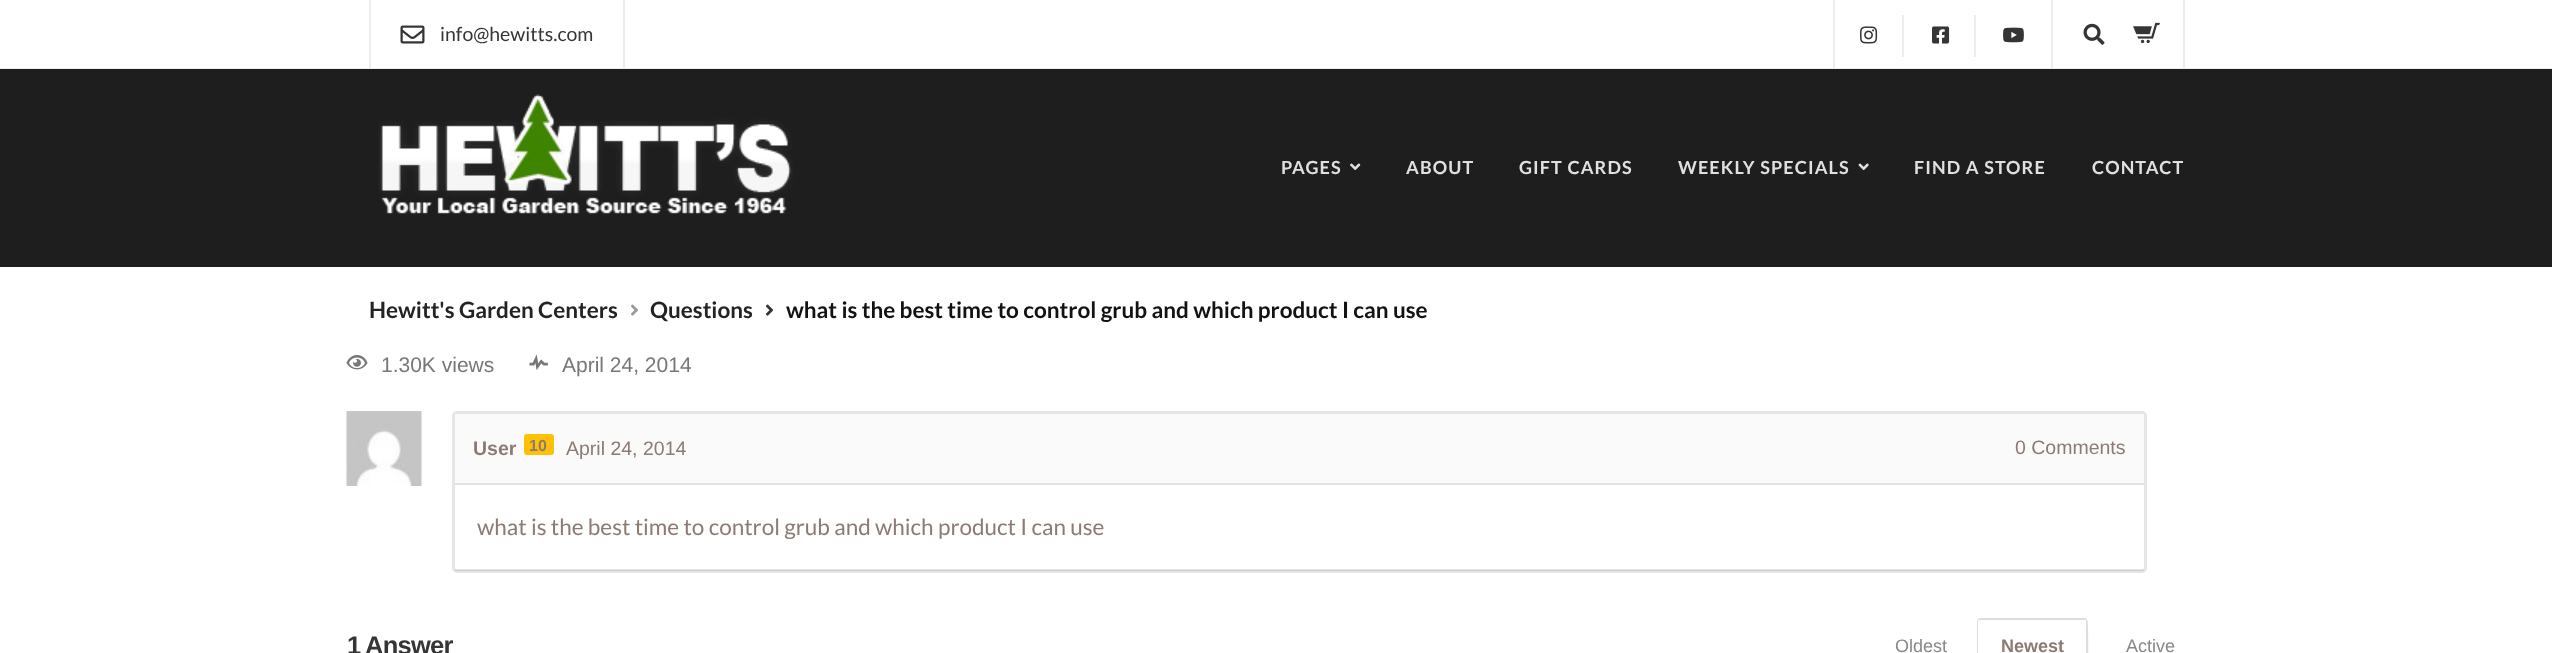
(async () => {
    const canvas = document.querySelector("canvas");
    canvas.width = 2552;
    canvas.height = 653;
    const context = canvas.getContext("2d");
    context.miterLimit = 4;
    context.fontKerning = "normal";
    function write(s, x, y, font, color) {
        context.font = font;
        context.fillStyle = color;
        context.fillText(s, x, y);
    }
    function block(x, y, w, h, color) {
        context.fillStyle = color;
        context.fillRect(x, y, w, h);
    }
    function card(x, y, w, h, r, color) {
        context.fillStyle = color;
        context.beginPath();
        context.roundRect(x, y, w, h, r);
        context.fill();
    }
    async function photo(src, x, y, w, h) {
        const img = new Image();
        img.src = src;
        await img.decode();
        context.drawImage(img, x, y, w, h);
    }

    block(0, 0, 2552, 653, "rgb(255, 255, 255)");
    block(0, 68, 2552, 1, "rgb(237, 237, 237)");
    block(623, 0, 2, 68, "rgb(237, 237, 237)");
    block(369, 0, 2, 68, "rgb(237, 237, 237)");
    await photo("media/1.png", 400, 25, 25, 19);
    write("info@hewitts.com", 440, 41, "19.5px Lato", "rgb(53, 53, 53)");
    block(1833, 0, 2, 68, "rgb(237, 237, 237)");
    block(1902, 15, 2, 42, "rgb(237, 237, 237)");
    await photo("media/2.png", 1860, 26, 18, 18);
    block(1974, 15, 2, 42, "rgb(237, 237, 237)");
    await photo("media/3.png", 1932, 26, 18, 18);
    await photo("media/4.png", 2003, 27, 21, 16);
    block(2183, 0, 2, 68, "rgb(237, 237, 237)");
    block(2051, 0, 2, 68, "rgb(237, 237, 237)");
    await photo("media/5.png", 2083, 23, 22, 22);
    await photo("media/6.png", 2133, 22, 27, 22);
    block(0, 69, 2552, 198, "rgb(30, 30, 30)");
    await photo("media/7.png", 378, 94, 415, 120);
    context.letterSpacing = "1.1px";
    write("PAGES", 1281, 174, "bold 18px Lato", "rgb(224, 224, 224)");
    await photo("media/8.png", 1350, 163, 11, 8);
    write("ABOUT", 1406, 174, "bold 18px Lato", "rgb(224, 224, 224)");
    write("GIFT CARDS", 1519, 174, "bold 18px Lato", "rgb(224, 224, 224)");
    write("WEEKLY SPECIALS", 1678, 174, "bold 18px Lato", "rgb(224, 224, 224)");
    await photo("media/9.png", 1858, 163, 11, 8);
    write("FIND A STORE", 1914, 174, "bold 18px Lato", "rgb(224, 224, 224)");
    write("CONTACT", 2092, 174, "bold 18px Lato", "rgb(224, 224, 224)");
    context.letterSpacing = "0px";
    write("Hewitt's Garden Centers", 369, 318, "bold 22.5px Lato", "rgb(35, 35, 35)");
    await photo("media/10.png", 631, 304, 7, 12);
    write("Questions", 650, 318, "bold 22.5px Lato", "rgb(35, 35, 35)");
    await photo("media/11.png", 765, 304, 9, 12);
    write("what is the best time to control grub and which product I can use", 786, 318, "bold 22.5px Lato", "rgb(18, 18, 18)");
    await photo("media/12.png", 346, 355, 22, 15);
    write("1.30K views", 381, 372, "21px Liberation Sans", "rgb(119, 119, 119)");
    await photo("media/13.png", 529, 354, 19, 16);
    write("April 24, 2014", 562, 372, "21px Liberation Sans", "rgb(119, 119, 119)");
    await photo("media/14.png", 346, 411, 76, 75);
    context.beginPath();
    context.roundRect(453.5, 412.5, 1692, 159, 3.5);
    context.strokeStyle = "rgb(230, 230, 230)";
    context.lineWidth = 3;
    context.stroke();
    block(455, 414, 1689, 69, "rgb(250, 250, 250)");
    block(455, 483, 1689, 2, "rgb(225, 225, 225)");
    write("User", 473, 455, "bold 19.5px Liberation Sans", "rgb(140, 122, 115)");
    card(524, 434, 30, 21, 3, "rgb(255, 193, 7)");
    write("10", 529, 451, "bold 16px Liberation Sans", "rgb(140, 122, 115)");
    write("April 24, 2014", 566, 455, "19.5px Liberation Sans", "rgb(140, 122, 115)");
    write("0 Comments", 2015, 454, "19.5px Liberation Sans", "rgb(140, 122, 115)");
    write("what is the best time to control grub and which product I can use", 477, 535, "22.5px Lato", "rgb(140, 122, 115)");
    block(455, 569, 1689, 2, "rgba(0, 0, 0, 0.1)");
    context.letterSpacing = "-0.75px";
    write("1", 347, 654, "bold 25.5px Liberation Sans", "rgb(53, 53, 53)");
    write("Answer", 365, 654, "bold 25.5px Liberation Sans", "rgb(53, 53, 53)");
    context.letterSpacing = "0px";
    write("Oldest", 1895, 652, "18px Liberation Sans", "rgb(136, 136, 136)");
    context.fillStyle = "rgb(221, 221, 221)";
    context.beginPath();
    context.moveTo(1980, 618);
    context.lineTo(1978, 619);
    context.lineTo(1979, 620);
    context.lineTo(2086, 620);
    context.lineTo(2087, 619);
    context.lineTo(2085, 618);
    context.closePath();
    context.fill();
    context.beginPath();
    context.moveTo(2088, 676);
    context.bezierCurveTo(2088, 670, 2089, 621, 2087, 619);
    context.lineTo(2086, 620);
    context.lineTo(2086, 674);
    context.closePath();
    context.fill();
    context.beginPath();
    context.moveTo(1977, 621);
    context.lineTo(1977, 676);
    context.lineTo(1978, 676);
    context.lineTo(1978, 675);
    context.lineTo(1978, 621);
    context.lineTo(1979, 620);
    context.lineTo(1978, 619);
    context.closePath();
    context.fill();
    write("Newest", 2001, 652, "bold 18px Liberation Sans", "rgb(140, 122, 115)");
    write("Active", 2126, 652, "18px Liberation Sans", "rgb(136, 136, 136)");
})();
